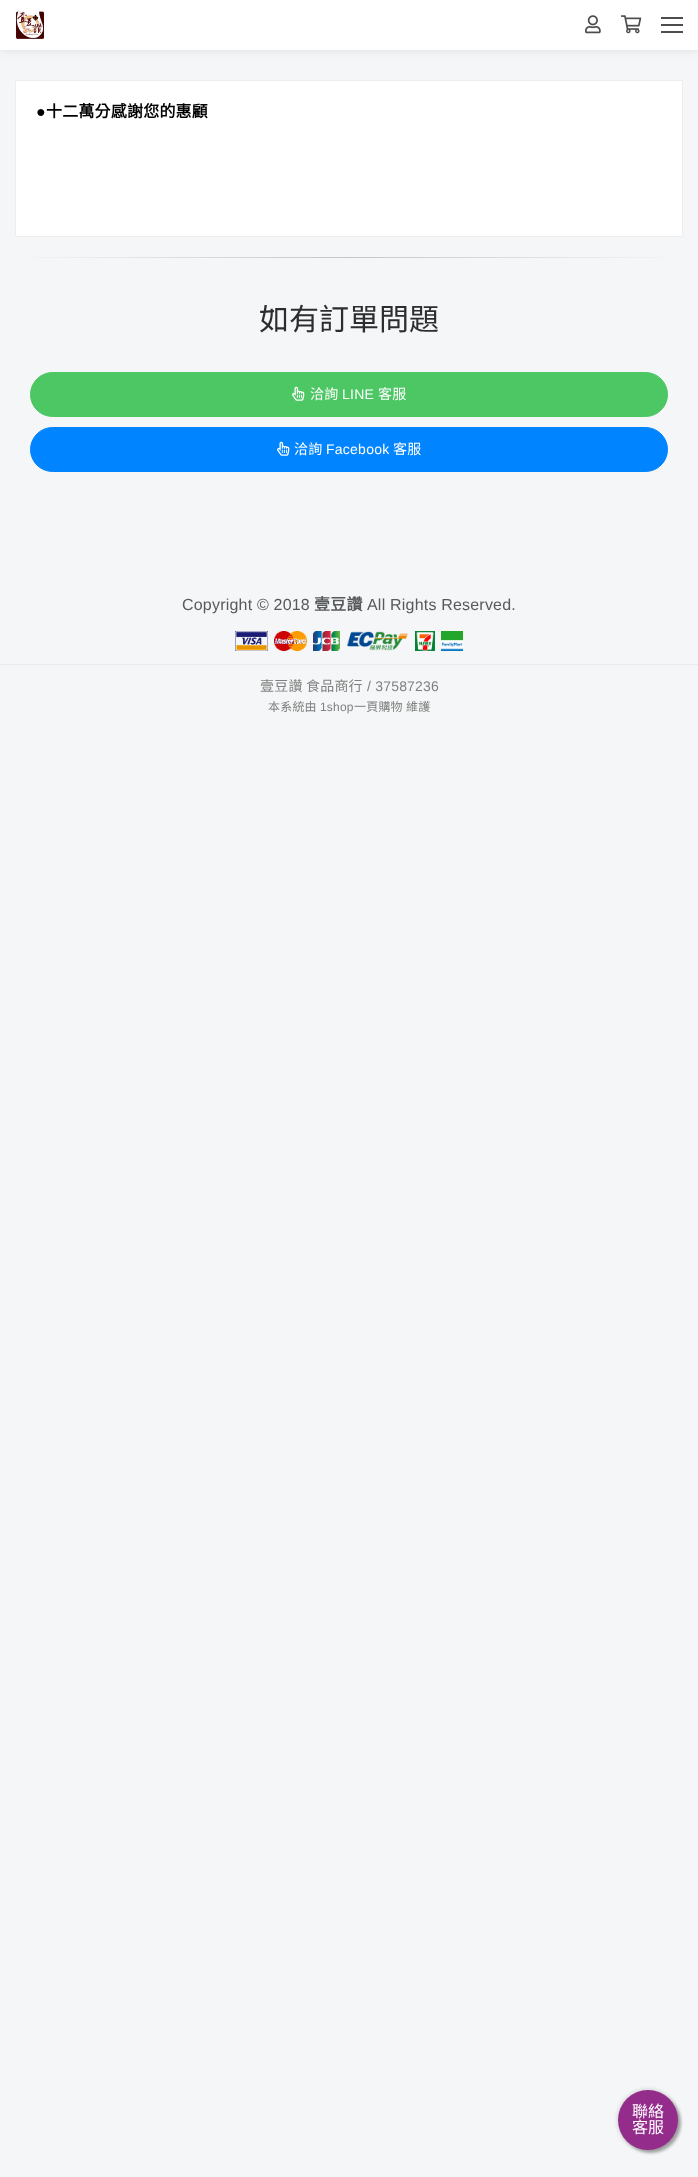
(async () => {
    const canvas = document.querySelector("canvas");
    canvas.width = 698;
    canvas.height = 2177;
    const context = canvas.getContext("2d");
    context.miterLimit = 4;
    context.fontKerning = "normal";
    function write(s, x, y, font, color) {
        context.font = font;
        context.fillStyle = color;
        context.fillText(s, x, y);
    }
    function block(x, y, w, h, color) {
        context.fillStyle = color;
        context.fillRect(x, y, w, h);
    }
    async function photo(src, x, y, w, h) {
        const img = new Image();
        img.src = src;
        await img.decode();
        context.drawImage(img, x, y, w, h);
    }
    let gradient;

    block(0, 0, 698, 2177, "rgb(245, 246, 247)");
    context.fillStyle = "rgba(0, 0, 0, 0.1)";
    context.filter = "blur(5px)";
    context.beginPath();
    context.rect(0, 0, 698, 50);
    context.fill();
    context.filter = "none";
    block(0, 0, 698, 50, "rgb(255, 255, 255)");
    await photo("media/1.png", 15, 10, 30, 29);
    await photo("media/2.png", 585, 15, 16, 19);
    await photo("media/3.png", 621, 15, 21, 19);
    block(661, 17, 22, 2, "rgb(77, 77, 77)");
    block(661, 24, 22, 2, "rgb(77, 77, 77)");
    block(661, 31, 22, 2, "rgb(77, 77, 77)");
    context.fillStyle = "rgb(255, 255, 255)";
    context.beginPath();
    context.roundRect(15.5, 80.5, 667, 156, 0.5);
    context.fill();
    context.strokeStyle = "rgb(237, 237, 237)";
    context.stroke();
    context.letterSpacing = "0.2px";
    write("●", 36, 117, "bold 16px Liberation Sans", "rgb(0, 0, 0)");
    write("十二萬分感謝您的惠顧", 46, 117, "bold 16px Noto Sans CJK TC", "rgb(0, 0, 0)");
    gradient = context.createLinearGradient(15, 258, 683, 258);
    gradient.addColorStop(0, "rgb(245, 246, 247)");
    gradient.addColorStop(0.5, "rgb(196, 197, 198)");
    gradient.addColorStop(1, "rgb(245, 246, 247)");
    context.fillStyle = gradient;
    context.fillRect(32, 257, 634, 1);
    context.letterSpacing = "0px";
    write("如有訂單問題", 259, 330, "30px Noto Sans CJK TC", "rgb(44, 45, 47)");
    context.fillStyle = "rgb(76, 199, 100)";
    context.beginPath();
    context.roundRect(30.5, 372.5, 637, 44, 22);
    context.fill();
    context.strokeStyle = "rgb(76, 199, 100)";
    context.stroke();
    await photo("media/4.png", 292, 386, 13, 15);
    context.letterSpacing = "0.25px";
    write("洽詢", 310, 399, "14px Noto Sans CJK TC", "rgb(255, 255, 255)");
    write("LINE", 342, 399, "14px Liberation Sans", "rgb(255, 255, 255)");
    write("客服", 378, 399, "14px Noto Sans CJK TC", "rgb(255, 255, 255)");
    context.fillStyle = "rgb(0, 132, 255)";
    context.beginPath();
    context.roundRect(30.5, 427.5, 637, 44, 22);
    context.fill();
    context.strokeStyle = "rgb(0, 132, 255)";
    context.stroke();
    await photo("media/5.png", 277, 441, 13, 15);
    write("洽詢", 294, 454, "14px Noto Sans CJK TC", "rgb(255, 255, 255)");
    write("Facebook", 326, 454, "14px Liberation Sans", "rgb(255, 255, 255)");
    write("客服", 393, 454, "14px Noto Sans CJK TC", "rgb(255, 255, 255)");
    context.letterSpacing = "0.2px";
    write("Copyright © 2018", 182, 610, "16px Liberation Sans", "rgb(87, 90, 93)");
    context.letterSpacing = "0.25px";
    write("壹豆讚", 314, 610, "bold 16px Noto Sans CJK TC", "rgb(87, 90, 93)");
    context.letterSpacing = "0.2px";
    write("All Rights Reserved.", 367, 610, "16px Liberation Sans", "rgb(87, 90, 93)");
    await photo("media/6.png", 235, 631, 33, 20);
    await photo("media/7.png", 274, 631, 33, 20);
    await photo("media/8.png", 313, 631, 27, 20);
    await photo("media/9.png", 346, 631, 63, 20);
    await photo("media/10.png", 415, 631, 20, 20);
    await photo("media/11.png", 441, 631, 22, 20);
    block(0, 664, 698, 1, "rgb(234, 235, 236)");
    write("壹豆讚", 260, 691, "14px Noto Sans CJK TC", "rgb(128, 128, 128)");
    write("食品商行", 306, 691, "14px Noto Sans CJK TC", "rgb(128, 128, 128)");
    write("/ 37587236", 367, 691, "14px Liberation Sans", "rgb(128, 128, 128)");
    write("本系統由", 268, 711, "12px Noto Sans CJK TC", "rgb(128, 128, 128)");
    write("1shop", 320, 711, "12px Liberation Sans", "rgb(128, 128, 128)");
    write("一頁購物", 354, 711, "12px Noto Sans CJK TC", "rgb(128, 128, 128)");
    write("維護", 406, 711, "12px Noto Sans CJK TC", "rgb(128, 128, 128)");
    context.fillStyle = "rgba(0, 0, 0, 0.3)";
    context.filter = "blur(1.5px)";
    context.beginPath();
    context.roundRect(621, 2093, 60, 60, 30);
    context.fill();
    context.filter = "none";
    context.fillStyle = "rgba(0, 0, 0, 0.2)";
    context.filter = "blur(2.5px)";
    context.beginPath();
    context.roundRect(618, 2090, 60, 60, 30);
    context.fill();
    context.filter = "none";
    context.fillStyle = "rgb(147, 44, 139)";
    context.beginPath();
    context.arc(648, 2120, 30, 0, Math.PI * 2);
    context.fill();
    context.letterSpacing = "0px";
    write("聯絡", 632, 2117, "16px Noto Sans CJK TC", "rgb(255, 255, 255)");
    write("客服", 632, 2133, "16px Noto Sans CJK TC", "rgb(255, 255, 255)");
})();
